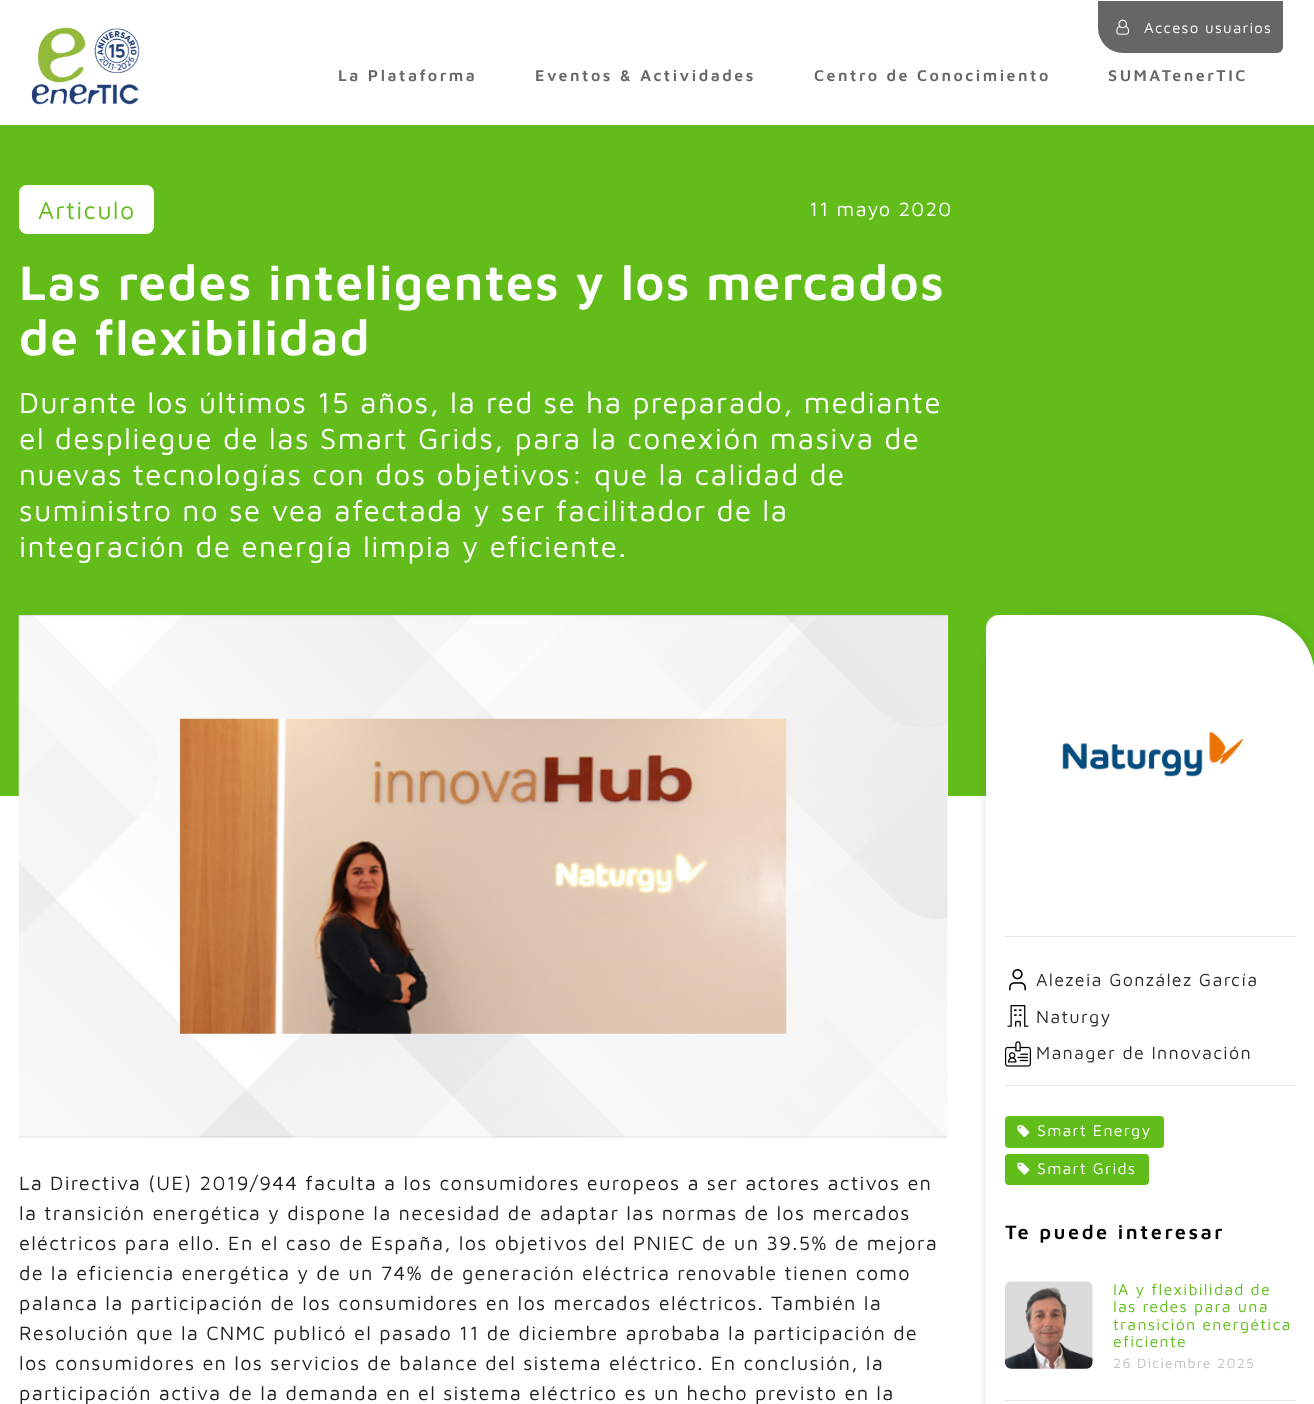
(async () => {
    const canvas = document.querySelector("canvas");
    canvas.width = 1314;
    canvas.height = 1404;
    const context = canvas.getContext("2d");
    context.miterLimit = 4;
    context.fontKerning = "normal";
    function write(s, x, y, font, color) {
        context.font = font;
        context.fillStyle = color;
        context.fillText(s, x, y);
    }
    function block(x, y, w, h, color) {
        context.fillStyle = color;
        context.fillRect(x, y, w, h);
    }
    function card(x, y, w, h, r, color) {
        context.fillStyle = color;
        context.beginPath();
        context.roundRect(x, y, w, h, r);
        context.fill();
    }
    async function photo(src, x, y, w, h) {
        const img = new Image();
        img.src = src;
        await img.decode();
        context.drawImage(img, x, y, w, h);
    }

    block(0, 0, 1314, 1404, "rgb(255, 255, 255)");
    await photo("media/1.png", 31, 27, 109, 78);
    context.fillStyle = "rgb(102, 102, 102)";
    context.beginPath();
    context.roundRect(1098, 1, 185, 52, [0, 0, 6, 25]);
    context.fill();
    await photo("media/2.png", 1116, 19, 14, 16);
    context.letterSpacing = "1.25px";
    write("Acceso usuarios", 1144, 33, "15px Maven Pro", "rgb(255, 255, 255)");
    context.letterSpacing = "2.5px";
    write("La Plataforma", 338, 81, "600 16px Maven Pro", "rgb(102, 102, 102)");
    write("Eventos & Actividades", 535, 81, "600 16px Maven Pro", "rgb(102, 102, 102)");
    write("Centro de Conocimiento", 814, 81, "600 16px Maven Pro", "rgb(102, 102, 102)");
    write("SUMATenerTIC", 1108, 81, "600 16px Maven Pro", "rgb(102, 102, 102)");
    block(0, 125, 1314, 671, "rgb(98, 189, 27)");
    card(19, 185, 135, 49, 8, "rgb(255, 255, 255)");
    context.letterSpacing = "1.25px";
    write("Articulo", 38, 219, "25px Maven Pro", "rgb(98, 189, 27)");
    write("11 mayo 2020", 809, 216, "20px Maven Pro", "rgb(255, 255, 255)");
    write("Las redes inteligentes y los mercados", 19, 300, "600 50px Maven Pro", "rgb(255, 255, 255)");
    write("de flexibilidad", 19, 355, "600 50px Maven Pro", "rgb(255, 255, 255)");
    write("Durante los últimos 15 años, la red se ha preparado, mediante", 19, 413, "30px Maven Pro", "rgb(255, 255, 255)");
    write("el despliegue de las Smart Grids, para la conexión masiva de", 19, 449, "30px Maven Pro", "rgb(255, 255, 255)");
    write("nuevas tecnologías con dos objetivos: que la calidad de", 19, 485, "30px Maven Pro", "rgb(255, 255, 255)");
    write("suministro no se vea afectada y ser facilitador de la", 19, 521, "30px Maven Pro", "rgb(255, 255, 255)");
    write("integración de energía limpia y eficiente.", 19, 557, "30px Maven Pro", "rgb(255, 255, 255)");
    block(19, 615, 929, 181, "rgb(255, 255, 255)");
    await photo("media/3.png", 18, 615, 930, 523);
    await photo("media/4.png", 180, 718, 607, 316);
    write("La Directiva (UE) 2019/944 faculta a los consumidores europeos a ser actores activos en", 19, 1190, "20px Maven Pro", "rgb(33, 33, 33)");
    write("la transición energética y dispone la necesidad de adaptar las normas de los mercados", 19, 1220, "20px Maven Pro", "rgb(33, 33, 33)");
    write("eléctricos para ello. En el caso de España, los objetivos del PNIEC de un 39.5% de mejora", 19, 1250, "20px Maven Pro", "rgb(33, 33, 33)");
    write("de la eficiencia energética y de un 74% de generación eléctrica renovable tienen como", 19, 1280, "20px Maven Pro", "rgb(33, 33, 33)");
    write("palanca la participación de los consumidores en los mercados eléctricos. También la", 19, 1310, "20px Maven Pro", "rgb(33, 33, 33)");
    write("Resolución que la CNMC publicó el pasado 11 de diciembre aprobaba la participación de", 19, 1340, "20px Maven Pro", "rgb(33, 33, 33)");
    write("los consumidores en los servicios de balance del sistema eléctrico. En conclusión, la", 19, 1370, "20px Maven Pro", "rgb(33, 33, 33)");
    write("participación activa de la demanda en el sistema eléctrico es un hecho previsto en la", 19, 1400, "20px Maven Pro", "rgb(33, 33, 33)");
    context.fillStyle = "rgba(0, 0, 0, 0.1)";
    context.filter = "blur(6px)";
    context.beginPath();
    context.roundRect(986, 615, 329, 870, 63);
    context.fill();
    context.filter = "none";
    context.fillStyle = "rgb(255, 255, 255)";
    context.beginPath();
    context.moveTo(999, 615);
    context.lineTo(1252, 615);
    context.bezierCurveTo(1287, 615, 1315, 643, 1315, 678);
    context.lineTo(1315, 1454);
    context.bezierCurveTo(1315, 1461, 1309, 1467, 1302, 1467);
    context.lineTo(999, 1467);
    context.bezierCurveTo(992, 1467, 986, 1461, 986, 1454);
    context.lineTo(986, 628);
    context.bezierCurveTo(986, 621, 992, 615, 999, 615);
    context.closePath();
    context.fill();
    await photo("media/5.png", 1062, 732, 182, 45);
    block(1005, 936, 291, 1, "rgb(230, 230, 230)");
    await photo("media/6.png", 1009, 969, 17, 22);
    write("Alezeia González García", 1036, 986, "18px Maven Pro", "rgb(41, 43, 44)");
    await photo("media/7.png", 1007, 1005, 22, 22);
    write("Naturgy", 1036, 1023, "18px Maven Pro", "rgb(41, 43, 44)");
    await photo("media/8.png", 1005, 1041, 26, 26);
    write("Manager de Innovación", 1036, 1059, "18px Maven Pro", "rgb(41, 43, 44)");
    block(1005, 1085, 291, 1, "rgb(230, 230, 230)");
    card(1005, 1116, 159, 32, 4, "rgb(97, 190, 26)");
    await photo("media/9.png", 1017, 1125, 13, 13);
    write("Smart Energy", 1037, 1136, "16px Maven Pro", "rgb(255, 255, 255)");
    card(1005, 1154, 144, 31, 4, "rgb(97, 190, 26)");
    await photo("media/10.png", 1017, 1162, 13, 13);
    write("Smart Grids", 1037, 1174, "16px Maven Pro", "rgb(255, 255, 255)");
    context.letterSpacing = "2.5px";
    write("Te puede interesar", 1005, 1239, "600 20px Maven Pro", "rgb(0, 0, 0)");
    block(1005, 1400, 291, 1, "rgb(230, 230, 230)");
    await photo("media/11.png", 1005, 1281, 88, 88);
    context.letterSpacing = "1.25px";
    write("IA y flexibilidad de", 1113, 1295, "16px Maven Pro", "rgb(98, 189, 27)");
    write("las redes para una", 1113, 1312, "16px Maven Pro", "rgb(98, 189, 27)");
    write("transición energética", 1113, 1330, "16px Maven Pro", "rgb(98, 189, 27)");
    write("eficiente", 1113, 1347, "16px Maven Pro", "rgb(98, 189, 27)");
    write("26 Diciembre 2025", 1113, 1368, "14px Maven Pro", "rgb(191, 191, 191)");
})();
